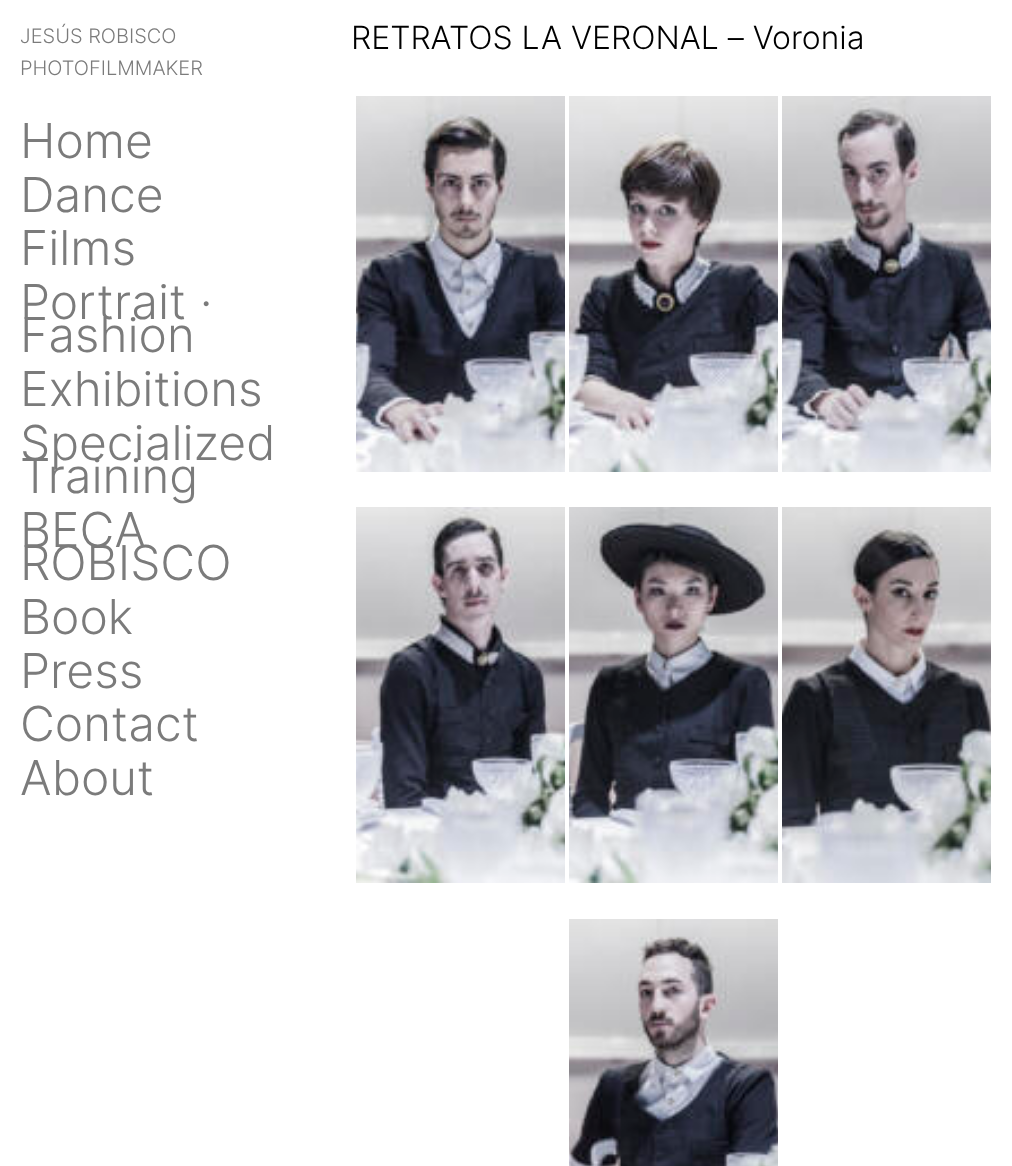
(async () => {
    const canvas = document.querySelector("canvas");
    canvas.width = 1012;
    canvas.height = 1166;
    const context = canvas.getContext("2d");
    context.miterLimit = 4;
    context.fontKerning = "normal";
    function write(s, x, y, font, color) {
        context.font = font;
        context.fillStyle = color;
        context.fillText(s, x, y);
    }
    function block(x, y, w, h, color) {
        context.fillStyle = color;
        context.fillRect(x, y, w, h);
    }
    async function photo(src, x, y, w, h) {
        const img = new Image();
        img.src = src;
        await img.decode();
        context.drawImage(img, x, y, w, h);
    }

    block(0, 0, 1012, 1166, "rgb(255, 255, 255)");
    write("JESÚS ROBISCO", 20, 43, "300 20px Inter", "rgb(123, 123, 123)");
    write("PHOTOFILMMAKER", 20, 75, "300 20px Inter", "rgb(123, 123, 123)");
    write("Home", 20, 158, "300 48px Inter", "rgb(123, 123, 123)");
    write("Dance", 20, 212, "300 48px Inter", "rgb(123, 123, 123)");
    write("Films", 20, 265, "300 48px Inter", "rgb(123, 123, 123)");
    write("Portrait ·", 20, 319, "300 48px Inter", "rgb(123, 123, 123)");
    write("Fashion", 20, 352, "300 48px Inter", "rgb(123, 123, 123)");
    write("Exhibitions", 20, 406, "300 48px Inter", "rgb(123, 123, 123)");
    write("Specialized", 20, 460, "300 48px Inter", "rgb(123, 123, 123)");
    write("Training", 20, 493, "300 48px Inter", "rgb(123, 123, 123)");
    write("BECA", 20, 547, "300 48px Inter", "rgb(123, 123, 123)");
    write("ROBISCO", 20, 580, "300 48px Inter", "rgb(123, 123, 123)");
    write("Book", 20, 634, "300 48px Inter", "rgb(123, 123, 123)");
    write("Press", 20, 688, "300 48px Inter", "rgb(123, 123, 123)");
    write("Contact", 20, 741, "300 48px Inter", "rgb(123, 123, 123)");
    write("About", 20, 795, "300 48px Inter", "rgb(123, 123, 123)");
    write("RETRATOS LA VERONAL – Voronia", 351, 49, "300 32px Inter", "rgb(0, 0, 0)");
    await photo("media/1.png", 356, 96, 209, 376);
    await photo("media/2.png", 569, 96, 209, 376);
    await photo("media/3.png", 782, 96, 209, 376);
    await photo("media/4.png", 356, 507, 209, 376);
    await photo("media/5.png", 569, 507, 209, 376);
    await photo("media/6.png", 782, 507, 209, 376);
    await photo("media/7.png", 569, 919, 209, 247);
})();
